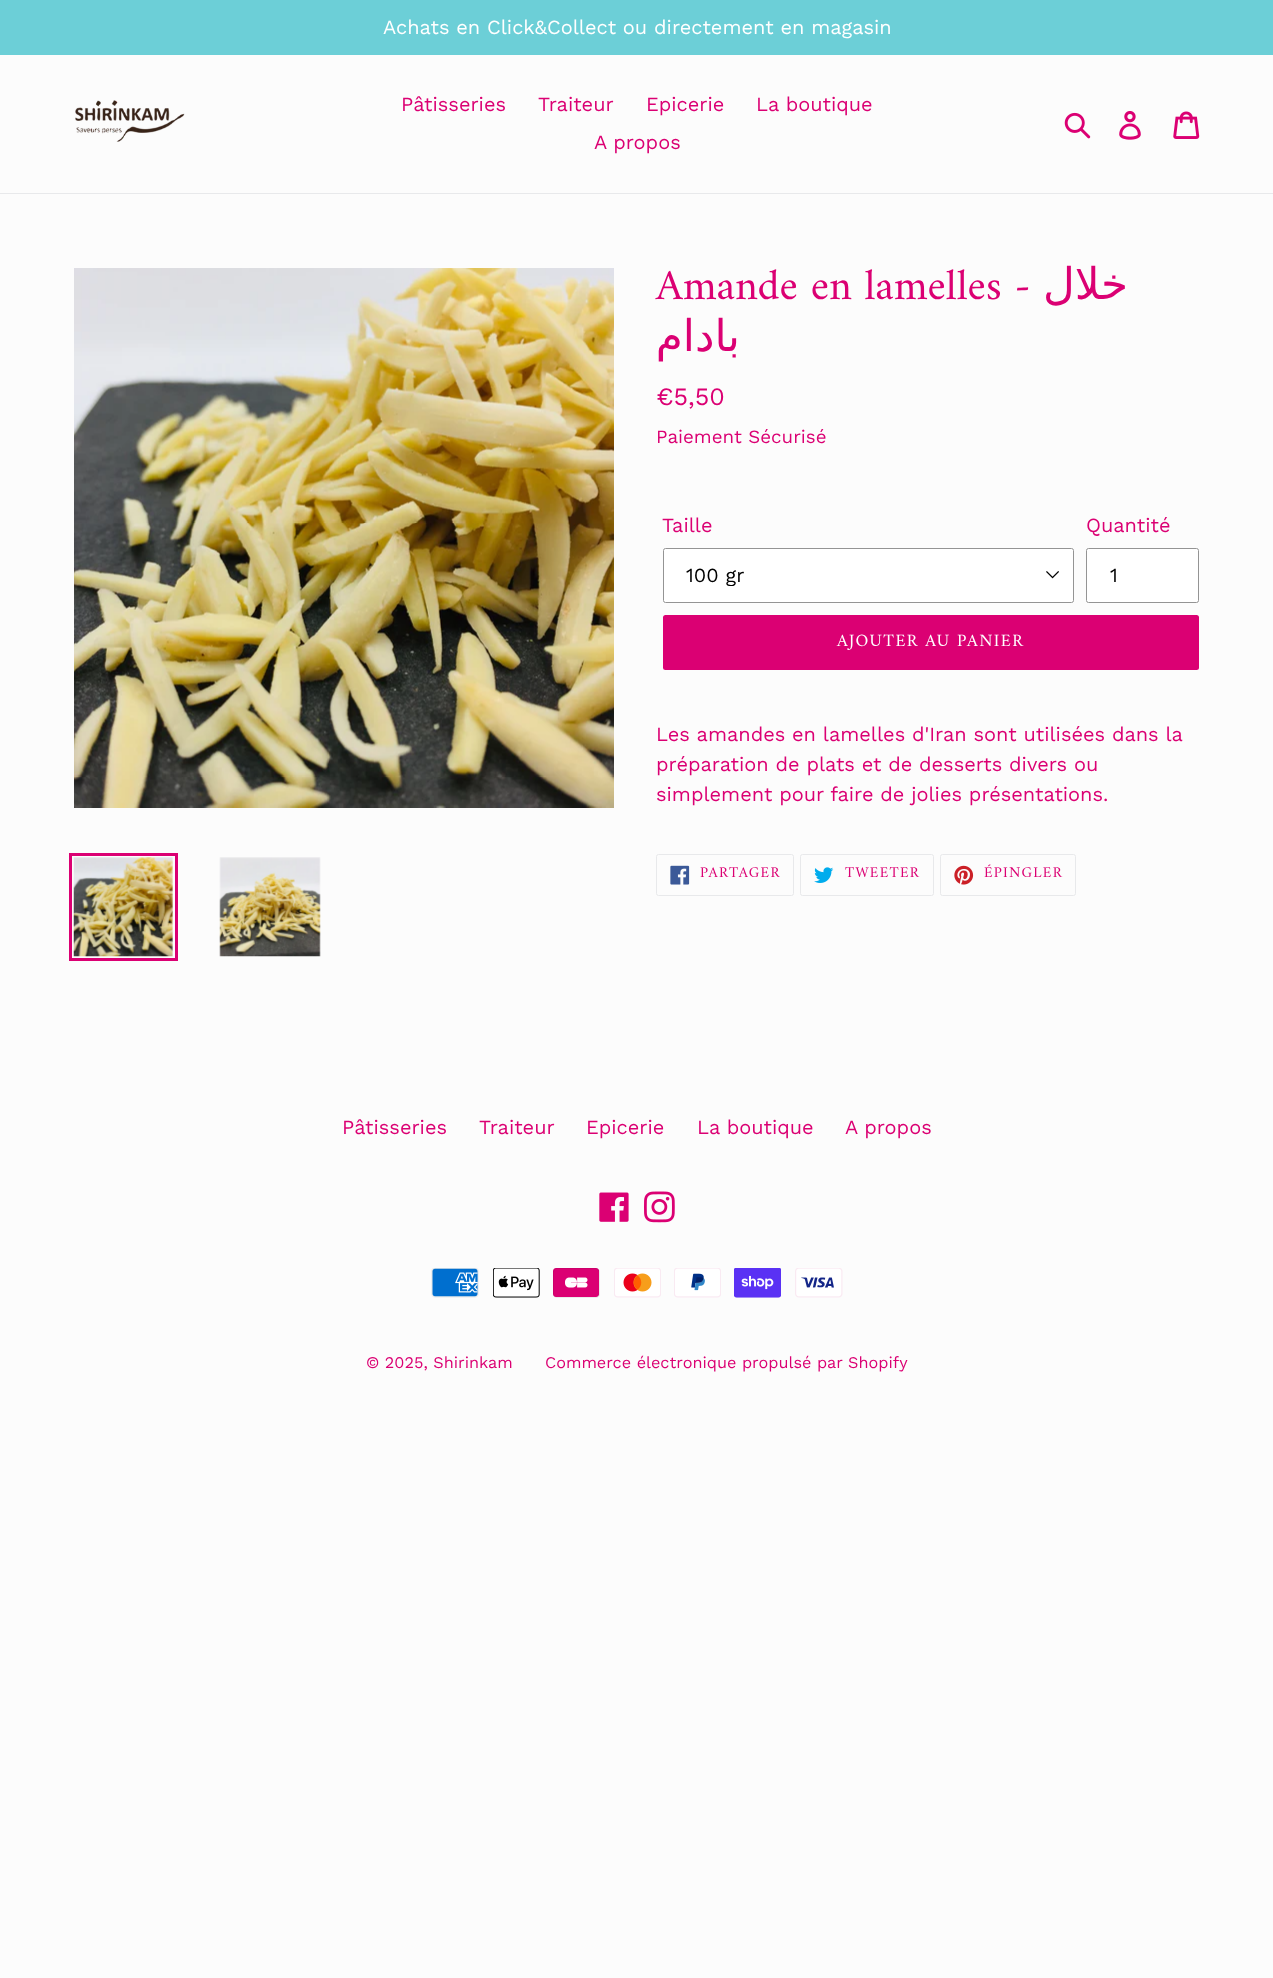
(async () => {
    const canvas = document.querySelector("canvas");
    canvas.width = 1273;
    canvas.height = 1978;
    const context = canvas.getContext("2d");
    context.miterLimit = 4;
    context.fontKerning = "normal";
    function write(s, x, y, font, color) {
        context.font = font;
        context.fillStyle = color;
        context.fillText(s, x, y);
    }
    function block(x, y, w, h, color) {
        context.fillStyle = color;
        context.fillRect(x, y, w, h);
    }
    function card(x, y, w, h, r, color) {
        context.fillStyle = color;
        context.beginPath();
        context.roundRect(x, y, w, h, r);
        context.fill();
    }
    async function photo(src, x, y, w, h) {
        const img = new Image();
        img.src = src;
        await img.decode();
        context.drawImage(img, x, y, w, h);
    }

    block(0, 0, 1273, 1978, "rgb(252, 252, 252)");
    block(0, 0, 1273, 55, "rgb(108, 207, 215)");
    write("Achats en Click&Collect ou directement en magasin", 383, 34, "20px Work Sans", "rgb(255, 255, 255)");
    block(0, 193, 1273, 1, "rgb(232, 233, 235)");
    await photo("media/1.png", 75, 100, 110, 42);
    write("Pâtisseries", 401, 111, "20px Work Sans", "rgb(219, 0, 115)");
    write("Traiteur", 538, 111, "20px Work Sans", "rgb(219, 0, 115)");
    write("Epicerie", 646, 111, "20px Work Sans", "rgb(219, 0, 115)");
    write("La boutique", 756, 111, "20px Work Sans", "rgb(219, 0, 115)");
    write("A propos", 594, 149, "20px Work Sans", "rgb(219, 0, 115)");
    await photo("media/2.png", 1064, 112, 27, 27);
    await photo("media/3.png", 1119, 111, 22, 29);
    await photo("media/4.png", 1173, 111, 27, 28);
    await photo("media/5.png", 74, 268, 540, 540);
    context.strokeStyle = "rgb(219, 0, 115)";
    context.lineWidth = 3;
    context.strokeRect(70.5, 854.5, 106, 105);
    await photo("media/6.png", 73, 857, 100, 100);
    await photo("media/7.png", 219, 857, 102, 100);
    write("Amande en lamelles -", 656, 299, "43.75px Amiri", "rgb(219, 0, 115)");
    context.direction = "rtl";
    write("خلال", 1128, 299, "43.75px DejaVu Sans", "rgb(219, 0, 115)");
    write("بادام", 740, 351, "43.75px DejaVu Sans", "rgb(219, 0, 115)");
    context.direction = "ltr";
    write("€5,50", 656, 405, "25px Work Sans", "rgb(219, 0, 115)");
    write("Paiement Sécurisé", 656, 443, "18.75px Work Sans", "rgb(219, 0, 115)");
    write("Taille", 662, 532, "20px Work Sans", "rgb(219, 0, 115)");
    card(663, 548, 411, 55, 2.5, "rgb(255, 255, 255)");
    await photo("media/8.png", 1046, 571, 13, 8);
    context.beginPath();
    context.roundRect(663.5, 548.5, 410, 54, 2);
    context.strokeStyle = "rgb(148, 148, 148)";
    context.lineWidth = 1;
    context.stroke();
    context.save();
    context.beginPath();
    context.rect(686, 563, 352, 23);
    context.clip();
    write("100 gr", 686, 582, "20px Work Sans", "rgb(0, 0, 0)");
    context.restore();
    write("Quantité", 1086, 532, "20px Work Sans", "rgb(219, 0, 115)");
    context.fillStyle = "rgb(255, 255, 255)";
    context.beginPath();
    context.roundRect(1086.5, 548.5, 112, 54, 2);
    context.fill();
    context.stroke();
    write("1", 1110, 582, "20px Work Sans", "rgb(0, 0, 0)");
    card(663, 615, 536, 55, 2.5, "rgb(219, 0, 115)");
    context.letterSpacing = "1.4px";
    write("AJOUTER AU PANIER", 837, 646, "17.5px Amiri", "rgb(255, 255, 255)");
    context.letterSpacing = "0px";
    write("Les amandes en lamelles d'Iran sont utilisées dans la", 656, 741, "20px Work Sans", "rgb(219, 0, 115)");
    write("préparation de plats et de desserts divers ou", 656, 771, "20px Work Sans", "rgb(219, 0, 115)");
    write("simplement pour faire de jolies présentations.", 656, 801, "20px Work Sans", "rgb(219, 0, 115)");
    context.beginPath();
    context.roundRect(656.5, 854.5, 137, 41, 2);
    context.strokeStyle = "rgb(232, 233, 235)";
    context.stroke();
    await photo("media/9.png", 670, 865, 20, 20);
    context.letterSpacing = "1.25px";
    write("PARTAGER", 700, 877, "15px Amiri", "rgb(219, 0, 115)");
    context.beginPath();
    context.roundRect(800.5, 854.5, 133, 41, 2);
    context.stroke();
    await photo("media/10.png", 814, 867, 20, 16);
    write("TWEETER", 845, 877, "15px Amiri", "rgb(219, 0, 115)");
    context.beginPath();
    context.roundRect(940.5, 854.5, 135, 41, 2);
    context.stroke();
    await photo("media/11.png", 954, 865, 20, 20);
    write("ÉPINGLER", 984, 877, "15px Amiri", "rgb(219, 0, 115)");
    context.letterSpacing = "0px";
    write("Pâtisseries", 342, 1134, "20px Work Sans", "rgb(219, 0, 115)");
    write("Traiteur", 479, 1134, "20px Work Sans", "rgb(219, 0, 115)");
    write("Epicerie", 586, 1134, "20px Work Sans", "rgb(219, 0, 115)");
    write("La boutique", 697, 1134, "20px Work Sans", "rgb(219, 0, 115)");
    write("A propos", 845, 1134, "20px Work Sans", "rgb(219, 0, 115)");
    await photo("media/12.png", 599, 1192, 30, 30);
    await photo("media/13.png", 644, 1191, 31, 32);
    await photo("media/14.png", 431, 1268, 48, 30);
    await photo("media/15.png", 493, 1268, 47, 30);
    await photo("media/16.png", 553, 1268, 47, 30);
    await photo("media/17.png", 614, 1268, 47, 30);
    await photo("media/18.png", 674, 1268, 47, 30);
    await photo("media/19.png", 734, 1268, 47, 30);
    await photo("media/20.png", 795, 1268, 48, 30);
    write("© 2025, Shirinkam", 366, 1368, "16.25px Work Sans", "rgb(219, 0, 115)");
    write("Commerce électronique propulsé par Shopify", 545, 1368, "16.25px Work Sans", "rgb(219, 0, 115)");
})();
